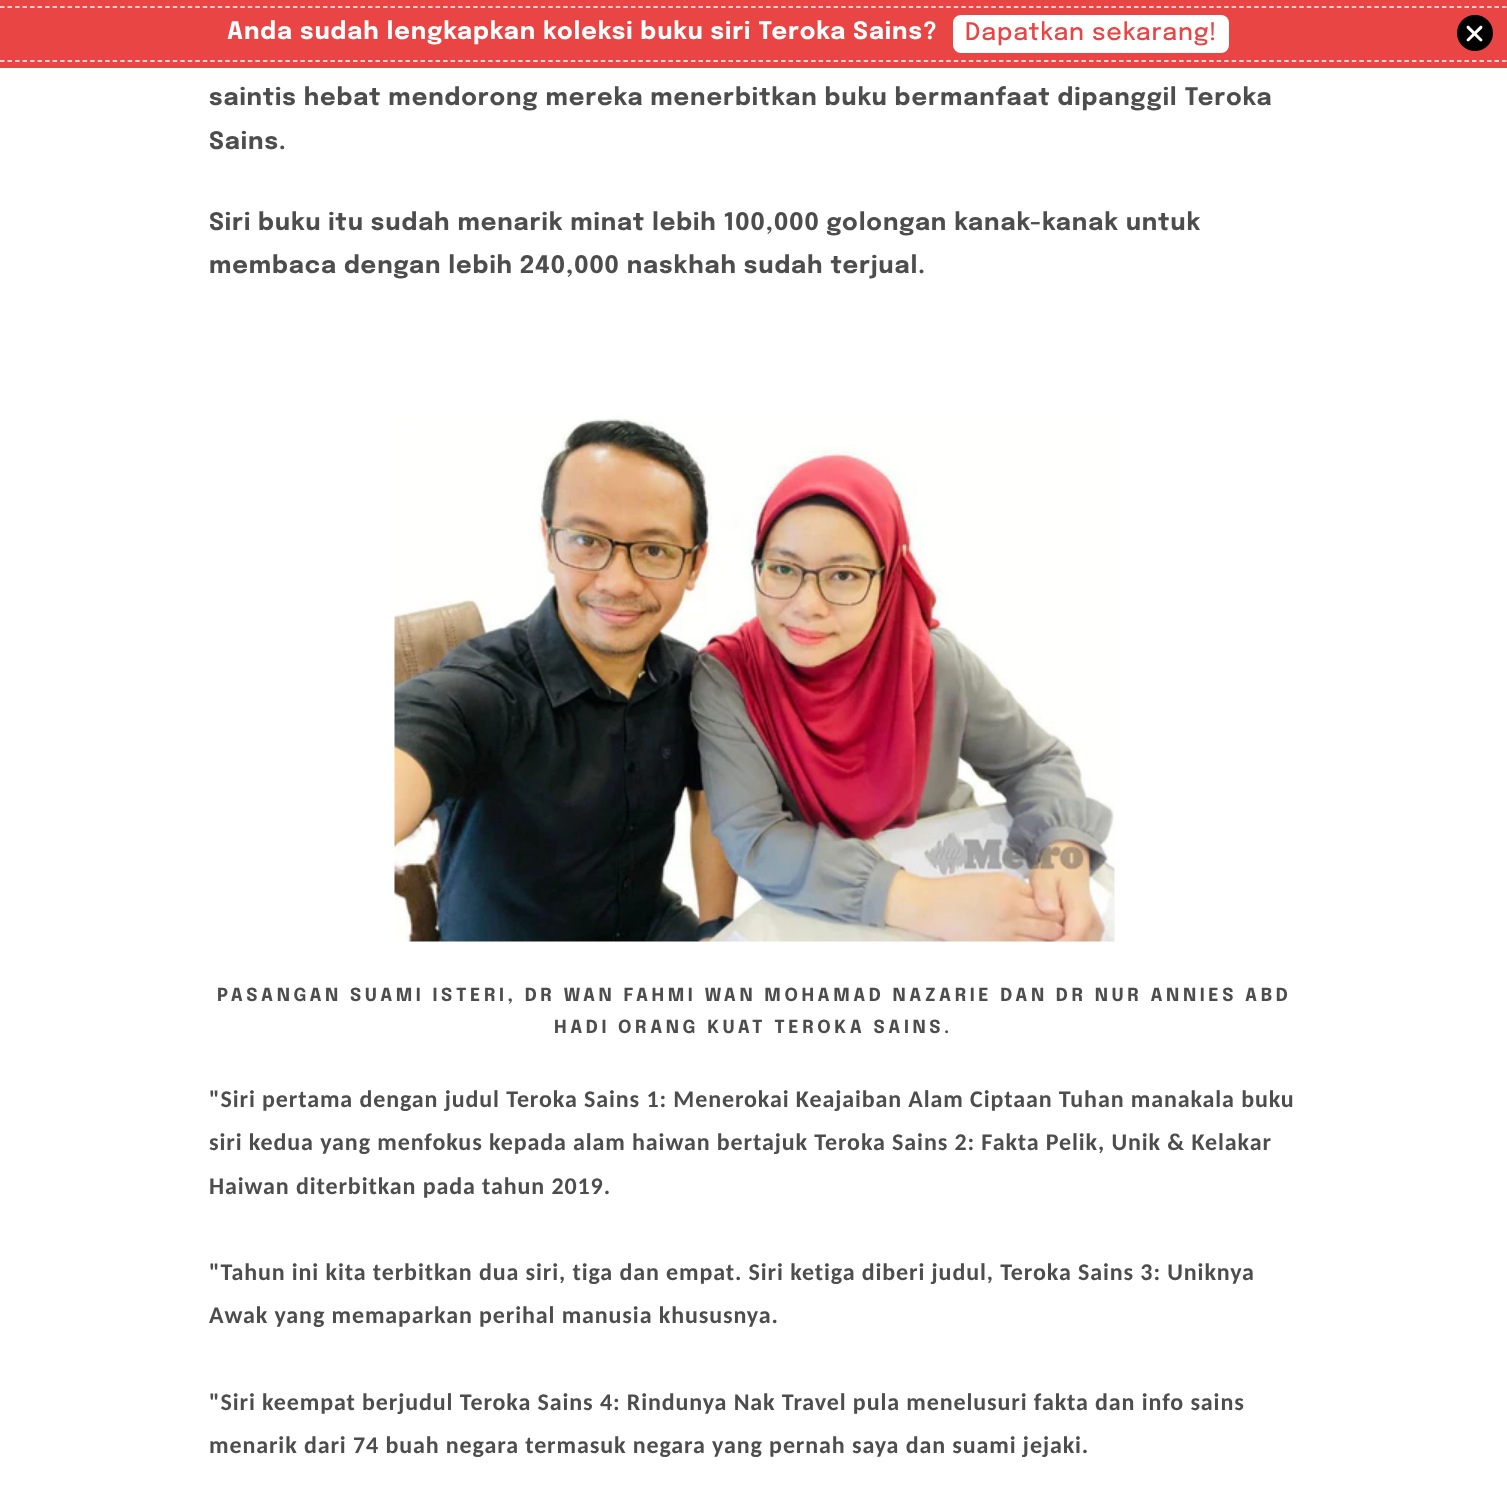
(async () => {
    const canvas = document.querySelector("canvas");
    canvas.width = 1507;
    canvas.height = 1488;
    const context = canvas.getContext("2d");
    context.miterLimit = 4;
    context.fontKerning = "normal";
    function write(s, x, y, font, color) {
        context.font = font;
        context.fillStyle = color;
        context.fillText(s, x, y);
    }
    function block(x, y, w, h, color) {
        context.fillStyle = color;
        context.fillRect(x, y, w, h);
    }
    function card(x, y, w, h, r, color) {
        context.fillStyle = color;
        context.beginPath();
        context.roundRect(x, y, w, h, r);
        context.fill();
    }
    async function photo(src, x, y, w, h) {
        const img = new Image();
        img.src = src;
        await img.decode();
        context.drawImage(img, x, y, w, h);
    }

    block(0, 0, 1507, 1488, "rgb(255, 255, 255)");
    block(0, 0, 1507, 68, "rgb(233, 69, 69)");
    context.beginPath();
    context.moveTo(0, 7);
    context.lineTo(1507.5, 7);
    context.strokeStyle = "rgb(255, 255, 255)";
    context.lineWidth = 1.5;
    context.setLineDash([4.5, 3.01]);
    context.stroke();
    context.beginPath();
    context.moveTo(0, 61);
    context.lineTo(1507.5, 61);
    context.stroke();
    context.letterSpacing = "0.9px";
    write("Anda sudah lengkapkan koleksi buku siri Teroka Sains?", 227, 39, "bold 24px Epilogue", "rgb(255, 255, 255)");
    card(953, 15, 276, 38, 8, "rgb(255, 255, 255)");
    write("Dapatkan sekarang!", 965, 40, "500 24px Epilogue", "rgb(233, 69, 69)");
    context.fillStyle = "rgb(0, 0, 0)";
    context.beginPath();
    context.arc(1475, 33, 18, 0, Math.PI * 2);
    context.fill();
    context.fillStyle = "rgb(255, 255, 255)";
    context.beginPath();
    context.moveTo(1482, 26);
    context.bezierCurveTo(1482.5, 26.5, 1482.5, 27.5, 1482, 28.5);
    context.lineTo(1469, 41);
    context.bezierCurveTo(1468.5, 41.5, 1467.5, 41.5, 1467, 41);
    context.bezierCurveTo(1466.5, 40.5, 1466.5, 39.5, 1467, 39);
    context.lineTo(1480, 26);
    context.bezierCurveTo(1480.5, 25.5, 1481.5, 25.5, 1482, 26);
    context.closePath();
    context.fill();
    context.beginPath();
    context.moveTo(1467, 26);
    context.bezierCurveTo(1467.5, 25.5, 1468.5, 25.5, 1469, 26);
    context.lineTo(1482, 39);
    context.bezierCurveTo(1482.5, 39.5, 1482.5, 40.5, 1482, 41);
    context.bezierCurveTo(1481.5, 41.5, 1480.5, 41.5, 1480, 41);
    context.lineTo(1467, 28.5);
    context.bezierCurveTo(1466.5, 27.5, 1466.5, 26.5, 1467, 26);
    context.closePath();
    context.fill();
    write("saintis hebat mendorong mereka menerbitkan buku bermanfaat dipanggil Teroka", 209, 105, "bold 24px Epilogue", "rgb(77, 77, 77)");
    write("Sains.", 209, 149, "bold 24px Epilogue", "rgb(77, 77, 77)");
    write("Siri buku itu sudah menarik minat lebih 100,000 golongan kanak-kanak untuk", 209, 230, "bold 24px Epilogue", "rgb(77, 77, 77)");
    write("membaca dengan lebih 240,000 naskhah sudah terjual.", 209, 273, "bold 24px Epilogue", "rgb(77, 77, 77)");
    await photo("media/1.png", 394, 415, 721, 527);
    context.letterSpacing = "3.6px";
    write("PASANGAN SUAMI ISTERI, DR WAN FAHMI WAN MOHAMAD NAZARIE DAN DR NUR ANNIES ABD", 217, 1001, "bold 18px Epilogue", "rgb(77, 77, 77)");
    write("HADI ORANG KUAT TEROKA SAINS.", 554, 1033, "bold 18px Epilogue", "rgb(77, 77, 77)");
    context.letterSpacing = "0.9px";
    write("\"Siri pertama dengan judul Teroka Sains 1: Menerokai Keajaiban Alam Ciptaan Tuhan manakala buku", 209, 1107, "bold 24px Carlito", "rgb(77, 77, 77)");
    write("siri kedua yang menfokus kepada alam haiwan bertajuk Teroka Sains 2: Fakta Pelik, Unik & Kelakar", 209, 1150, "bold 24px Carlito", "rgb(77, 77, 77)");
    write("Haiwan diterbitkan pada tahun 2019.", 209, 1194, "bold 24px Carlito", "rgb(77, 77, 77)");
    write("\"Tahun ini kita terbitkan dua siri, tiga dan empat. Siri ketiga diberi judul, Teroka Sains 3: Uniknya", 209, 1280, "bold 24px Carlito", "rgb(77, 77, 77)");
    write("Awak yang memaparkan perihal manusia khususnya.", 209, 1323, "bold 24px Carlito", "rgb(77, 77, 77)");
    write("\"Siri keempat berjudul Teroka Sains 4: Rindunya Nak Travel pula menelusuri fakta dan info sains", 209, 1410, "bold 24px Carlito", "rgb(77, 77, 77)");
    write("menarik dari 74 buah negara termasuk negara yang pernah saya dan suami jejaki.", 209, 1453, "bold 24px Carlito", "rgb(77, 77, 77)");
})();
